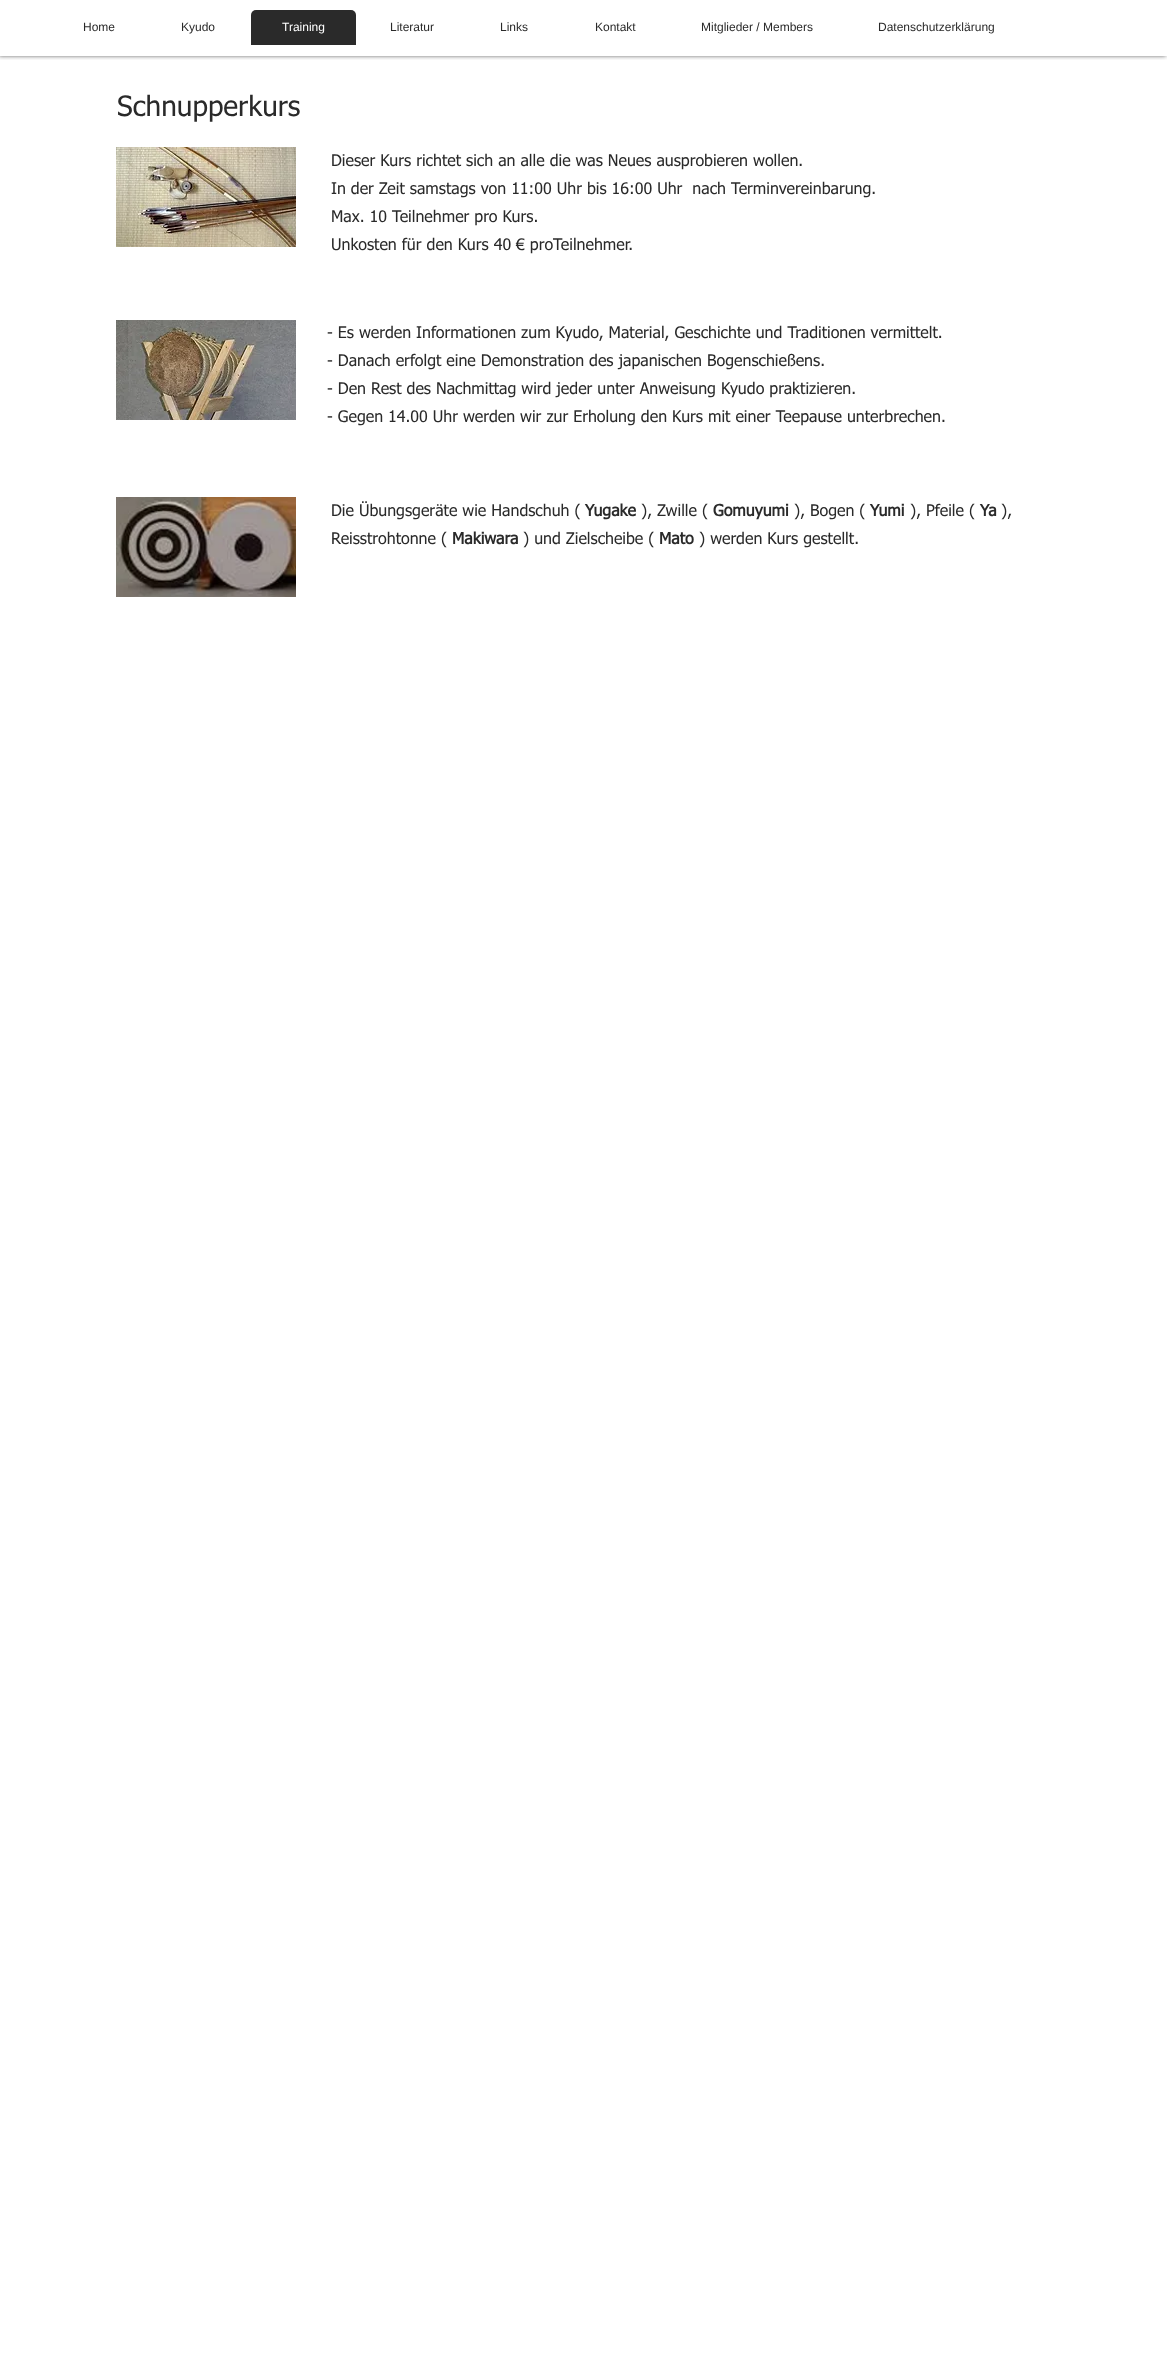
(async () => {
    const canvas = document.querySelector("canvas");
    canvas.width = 1167;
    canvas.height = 2378;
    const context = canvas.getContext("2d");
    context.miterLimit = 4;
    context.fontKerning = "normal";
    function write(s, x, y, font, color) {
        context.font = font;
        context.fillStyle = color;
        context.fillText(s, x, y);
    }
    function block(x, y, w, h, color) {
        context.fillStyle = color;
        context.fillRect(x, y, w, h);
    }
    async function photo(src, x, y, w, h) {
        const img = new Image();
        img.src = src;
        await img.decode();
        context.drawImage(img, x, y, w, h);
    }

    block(0, 0, 1167, 2378, "rgb(255, 255, 255)");
    context.save();
    context.beginPath();
    context.rect(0, 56, 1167, 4);
    context.clip();
    context.fillStyle = "rgba(0, 0, 0, 0.6)";
    context.filter = "blur(2px)";
    context.beginPath();
    context.rect(-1, 0, 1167, 56);
    context.fill();
    context.filter = "none";
    context.restore();
    write("Home", 83, 31, "12px Liberation Sans", "rgb(42, 42, 42)");
    write("Kyudo", 181, 31, "12px Liberation Sans", "rgb(42, 42, 42)");
    context.beginPath();
    context.roundRect(251, 10, 105, 35, [5, 5, 0, 0]);
    context.fill();
    write("Training", 282, 31, "12px Liberation Sans", "rgb(255, 255, 255)");
    write("Literatur", 390, 31, "12px Liberation Sans", "rgb(42, 42, 42)");
    write("Links", 500, 31, "12px Liberation Sans", "rgb(42, 42, 42)");
    write("Kontakt", 595, 31, "12px Liberation Sans", "rgb(42, 42, 42)");
    write("Mitglieder / Members", 701, 31, "12px Liberation Sans", "rgb(42, 42, 42)");
    write("Datenschutzerklärung", 878, 31, "12px Liberation Sans", "rgb(42, 42, 42)");
    write("Schnupperkurs", 117, 116, "28px tahoma", "rgb(42, 42, 42)");
    await photo("media/1.png", 116, 147, 180, 100);
    write("Dieser Kurs richtet sich an alle die was Neues ausprobieren wollen.", 331, 166, "16px tahoma", "rgb(42, 42, 42)");
    write("In der Zeit samstags von 11:00 Uhr bis 16:00 Uhr  nach Terminvereinbarung.", 331, 194, "16px tahoma", "rgb(42, 42, 42)");
    write("Max. 10 Teilnehmer pro Kurs.", 331, 222, "16px tahoma", "rgb(42, 42, 42)");
    write("Unkosten für den Kurs 40 € proTeilnehmer.", 331, 250, "16px tahoma", "rgb(42, 42, 42)");
    await photo("media/2.png", 116, 320, 180, 100);
    write("- Es werden Informationen zum Kyudo, Material, Geschichte und Traditionen vermittelt.", 327, 338, "16px tahoma", "rgb(42, 42, 42)");
    write("- Danach erfolgt eine Demonstration des japanischen Bogenschießens.", 327, 366, "16px tahoma", "rgb(42, 42, 42)");
    write("- Den Rest des Nachmittag wird jeder unter Anweisung Kyudo praktizieren.", 327, 394, "16px tahoma", "rgb(42, 42, 42)");
    write("- Gegen 14.00 Uhr werden wir zur Erholung den Kurs mit einer Teepause unterbrechen.", 327, 422, "16px tahoma", "rgb(42, 42, 42)");
    await photo("media/3.png", 116, 497, 180, 100);
    write("Die Übungsgeräte wie Handschuh (", 331, 516, "16px tahoma", "rgb(42, 42, 42)");
    write("Yugake", 585, 516, "bold 16px tahoma", "rgb(42, 42, 42)");
    write("), Zwille (", 641, 516, "16px tahoma", "rgb(42, 42, 42)");
    write("Gomuyumi", 713, 516, "bold 16px tahoma", "rgb(42, 42, 42)");
    write("), Bogen (", 794, 516, "16px tahoma", "rgb(42, 42, 42)");
    write("Yumi", 870, 516, "bold 16px tahoma", "rgb(42, 42, 42)");
    write("), Pfeile (", 910, 516, "16px tahoma", "rgb(42, 42, 42)");
    write("Ya", 980, 516, "bold 16px tahoma", "rgb(42, 42, 42)");
    write("),", 1001, 516, "16px tahoma", "rgb(42, 42, 42)");
    write("Reisstrohtonne (", 331, 544, "16px tahoma", "rgb(42, 42, 42)");
    write("Makiwara", 452, 544, "bold 16px tahoma", "rgb(42, 42, 42)");
    write(") und Zielscheibe (", 523, 544, "16px tahoma", "rgb(42, 42, 42)");
    write("Mato", 659, 544, "bold 16px tahoma", "rgb(42, 42, 42)");
    write(") werden Kurs gestellt.", 699, 544, "16px tahoma", "rgb(42, 42, 42)");
})();
